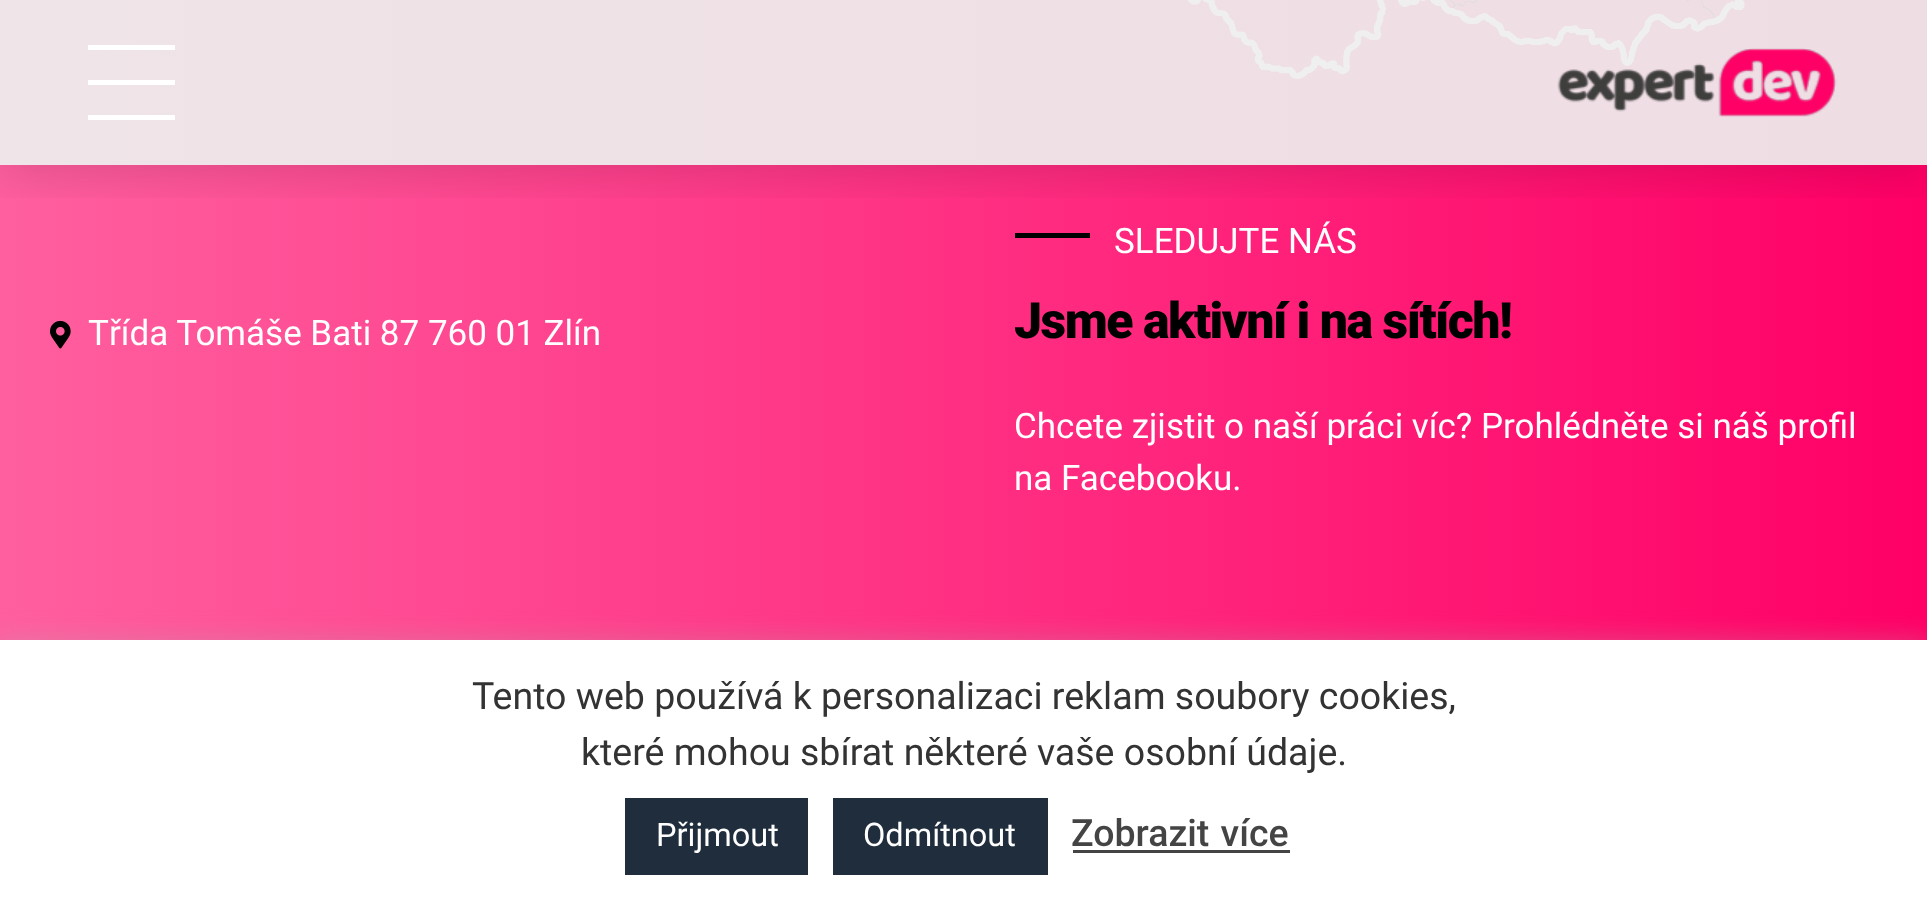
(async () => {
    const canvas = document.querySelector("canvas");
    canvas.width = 1927;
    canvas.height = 917;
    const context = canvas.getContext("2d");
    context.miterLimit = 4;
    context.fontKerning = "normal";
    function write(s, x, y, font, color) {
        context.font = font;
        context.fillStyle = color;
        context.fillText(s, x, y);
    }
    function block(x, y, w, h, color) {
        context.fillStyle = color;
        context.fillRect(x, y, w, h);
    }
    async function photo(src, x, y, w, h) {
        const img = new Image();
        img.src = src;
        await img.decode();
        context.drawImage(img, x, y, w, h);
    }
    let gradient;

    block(0, 0, 1927, 917, "rgb(255, 255, 255)");
    gradient = context.createLinearGradient(0, -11, 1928, -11);
    gradient.addColorStop(0, "rgb(255, 95, 159)");
    gradient.addColorStop(1, "rgb(255, 0, 102)");
    context.fillStyle = gradient;
    context.fillRect(0, 165, 1927, 475);
    gradient = context.createLinearGradient(0, -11, 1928, -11);
    gradient.addColorStop(0, "rgb(239, 228, 232)");
    gradient.addColorStop(1, "rgb(239, 221, 228)");
    context.fillStyle = gradient;
    context.fillRect(0, 0, 1927, 165);
    await photo("media/2.png", 1187, 0, 558, 79);
    block(1015, 233, 75, 5, "rgb(0, 0, 0)");
    context.save();
    context.beginPath();
    context.rect(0, 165, 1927, 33);
    context.clip();
    context.fillStyle = "rgba(0, 0, 0, 0.15)";
    context.filter = "blur(25px)";
    context.beginPath();
    context.rect(0, 5, 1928, 165);
    context.fill();
    context.filter = "none";
    context.restore();
    block(88, 45, 87, 5, "rgb(255, 255, 255)");
    block(88, 80, 87, 5, "rgb(255, 255, 255)");
    block(88, 115, 87, 5, "rgb(255, 255, 255)");
    await photo("media/1.png", 1557, 48, 280, 69);
    await photo("media/3.png", 50, 320, 21, 29);
    write("Třída Tomáše Bati 87 760 01 Zlín", 88, 345, "35px Roboto", "rgb(255, 255, 255)");
    write("SLEDUJTE NÁS", 1114, 253, "35px Roboto", "rgb(255, 255, 255)");
    context.letterSpacing = "-1.5px";
    write("Jsme aktivní i na sítích!", 1014, 338, "900 50px Roboto", "rgb(0, 0, 0)");
    context.letterSpacing = "0px";
    write("Chcete zjistit o naší práci víc? Prohlédněte si náš profil", 1014, 438, "35px Roboto", "rgb(255, 255, 255)");
    write("na Facebooku.", 1014, 490, "35px Roboto", "rgb(255, 255, 255)");
    context.fillStyle = "rgba(172, 171, 171, 0.3)";
    context.filter = "blur(12.5px)";
    context.beginPath();
    context.rect(0, 638, 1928, 277);
    context.fill();
    context.filter = "none";
    block(0, 640, 1927, 277, "rgb(255, 255, 255)");
    write("Tento web používá k personalizaci reklam soubory cookies,", 472, 709, "37.5px Roboto", "rgb(51, 51, 51)");
    write("které mohou sbírat některé vaše osobní údaje.", 581, 765, "37.5px Roboto", "rgb(51, 51, 51)");
    block(625, 798, 183, 77, "rgb(31, 45, 61)");
    write("Přijmout", 656, 846, "32.5px Roboto", "rgb(255, 255, 255)");
    block(833, 798, 215, 77, "rgb(31, 45, 61)");
    write("Odmítnout", 863, 846, "32.5px Roboto", "rgb(255, 255, 255)");
    context.wordSpacing = "2px";
    write("Zobrazit více", 1071, 846, "500 37.5px Roboto", "rgb(68, 68, 68)");
    block(1073, 850, 217, 3, "rgb(68, 68, 68)");
})();
